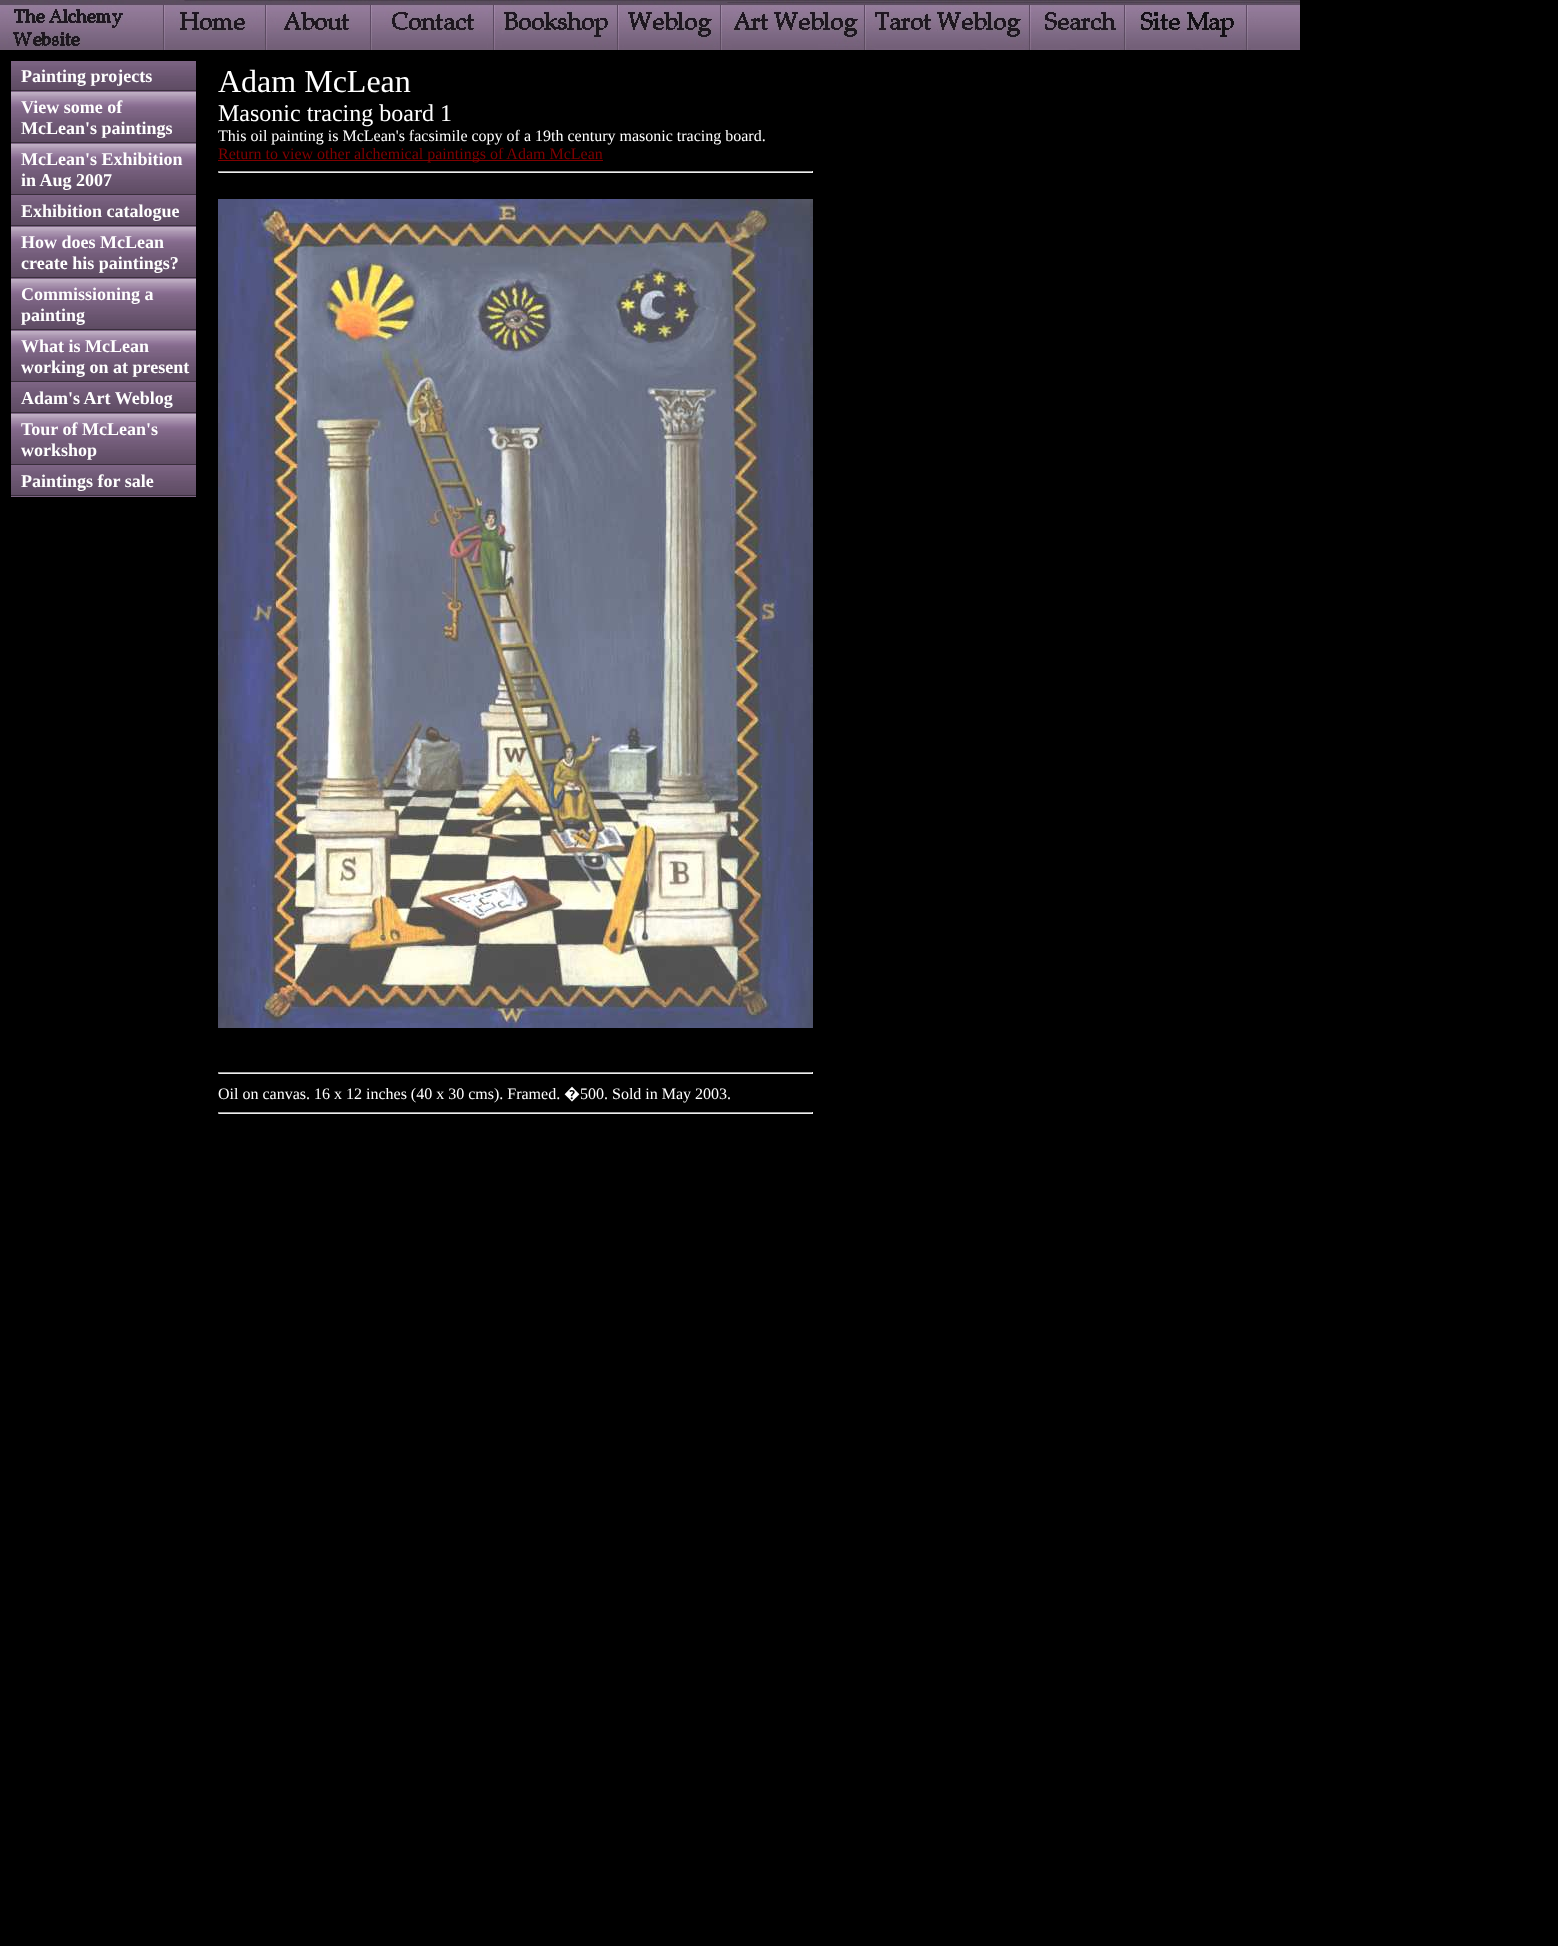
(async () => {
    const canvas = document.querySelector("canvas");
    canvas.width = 1558;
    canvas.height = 1946;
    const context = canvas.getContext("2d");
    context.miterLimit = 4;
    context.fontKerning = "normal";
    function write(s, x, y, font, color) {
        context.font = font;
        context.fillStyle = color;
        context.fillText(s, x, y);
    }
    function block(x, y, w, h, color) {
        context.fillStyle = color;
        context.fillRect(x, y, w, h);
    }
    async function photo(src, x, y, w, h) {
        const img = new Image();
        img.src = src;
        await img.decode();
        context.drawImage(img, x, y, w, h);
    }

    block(0, 0, 1558, 1946, "rgb(0, 0, 0)");
    await photo("media/1.png", 0, 0, 1300, 50);
    await photo("media/2.png", 11, 61, 185, 31);
    write("Painting projects", 21, 82, "bold 18px Liberation Serif", "rgb(255, 255, 255)");
    await photo("media/3.png", 11, 92, 185, 52);
    write("View some of", 21, 113, "bold 18px Liberation Serif", "rgb(255, 255, 255)");
    write("McLean's paintings", 21, 134, "bold 18px Liberation Serif", "rgb(255, 255, 255)");
    await photo("media/3.png", 11, 144, 185, 52);
    write("McLean's Exhibition", 21, 165, "bold 18px Liberation Serif", "rgb(255, 255, 255)");
    write("in Aug 2007", 21, 186, "bold 18px Liberation Serif", "rgb(255, 255, 255)");
    await photo("media/2.png", 11, 196, 185, 31);
    write("Exhibition catalogue", 21, 217, "bold 18px Liberation Serif", "rgb(255, 255, 255)");
    await photo("media/3.png", 11, 227, 185, 52);
    write("How does McLean", 21, 248, "bold 18px Liberation Serif", "rgb(255, 255, 255)");
    write("create his paintings?", 21, 269, "bold 18px Liberation Serif", "rgb(255, 255, 255)");
    await photo("media/3.png", 11, 279, 185, 52);
    write("Commissioning a", 21, 300, "bold 18px Liberation Serif", "rgb(255, 255, 255)");
    write("painting", 21, 321, "bold 18px Liberation Serif", "rgb(255, 255, 255)");
    await photo("media/3.png", 11, 331, 185, 52);
    write("What is McLean", 21, 352, "bold 18px Liberation Serif", "rgb(255, 255, 255)");
    write("working on at present", 21, 373, "bold 18px Liberation Serif", "rgb(255, 255, 255)");
    await photo("media/2.png", 11, 383, 185, 31);
    write("Adam's Art Weblog", 21, 404, "bold 18px Liberation Serif", "rgb(255, 255, 255)");
    await photo("media/3.png", 11, 414, 185, 52);
    write("Tour of McLean's", 21, 435, "bold 18px Liberation Serif", "rgb(255, 255, 255)");
    write("workshop", 21, 456, "bold 18px Liberation Serif", "rgb(255, 255, 255)");
    await photo("media/2.png", 11, 466, 185, 31);
    write("Paintings for sale", 21, 487, "bold 18px Liberation Serif", "rgb(255, 255, 255)");
    write("Adam McLean", 218, 92, "32px Liberation Serif", "rgb(255, 255, 255)");
    write("Masonic tracing board 1", 218, 121, "24px Liberation Serif", "rgb(255, 255, 255)");
    write("This oil painting is McLean's facsimile copy of a 19th century masonic tracing board.", 218, 141, "16px Liberation Serif", "rgb(255, 255, 255)");
    block(218, 160, 385, 1, "rgb(128, 0, 0)");
    write("Return to view other alchemical paintings of Adam McLean", 218, 159, "16px Liberation Serif", "rgb(128, 0, 0)");
    block(218, 171, 595, 1, "rgb(159, 159, 159)");
    block(812, 171, 1, 2, "rgb(238, 238, 238)");
    block(218, 172, 595, 1, "rgb(238, 238, 238)");
    block(218, 171, 1, 2, "rgb(159, 159, 159)");
    await photo("media/4.png", 218, 199, 595, 829);
    block(218, 1072, 595, 1, "rgb(159, 159, 159)");
    block(812, 1072, 1, 2, "rgb(238, 238, 238)");
    block(218, 1073, 595, 1, "rgb(238, 238, 238)");
    block(218, 1072, 1, 2, "rgb(159, 159, 159)");
    write("Oil on canvas. 16 x 12 inches (40 x 30 cms). Framed.", 218, 1099, "16px Liberation Serif", "rgb(255, 255, 255)");
    write("�", 564, 1099, "16px Noto Sans", "rgb(255, 255, 255)");
    write("500. Sold in May 2003.", 580, 1099, "16px Liberation Serif", "rgb(255, 255, 255)");
    block(218, 1112, 595, 1, "rgb(159, 159, 159)");
    block(812, 1112, 1, 2, "rgb(238, 238, 238)");
    block(218, 1113, 595, 1, "rgb(238, 238, 238)");
    block(218, 1112, 1, 2, "rgb(159, 159, 159)");
})();
